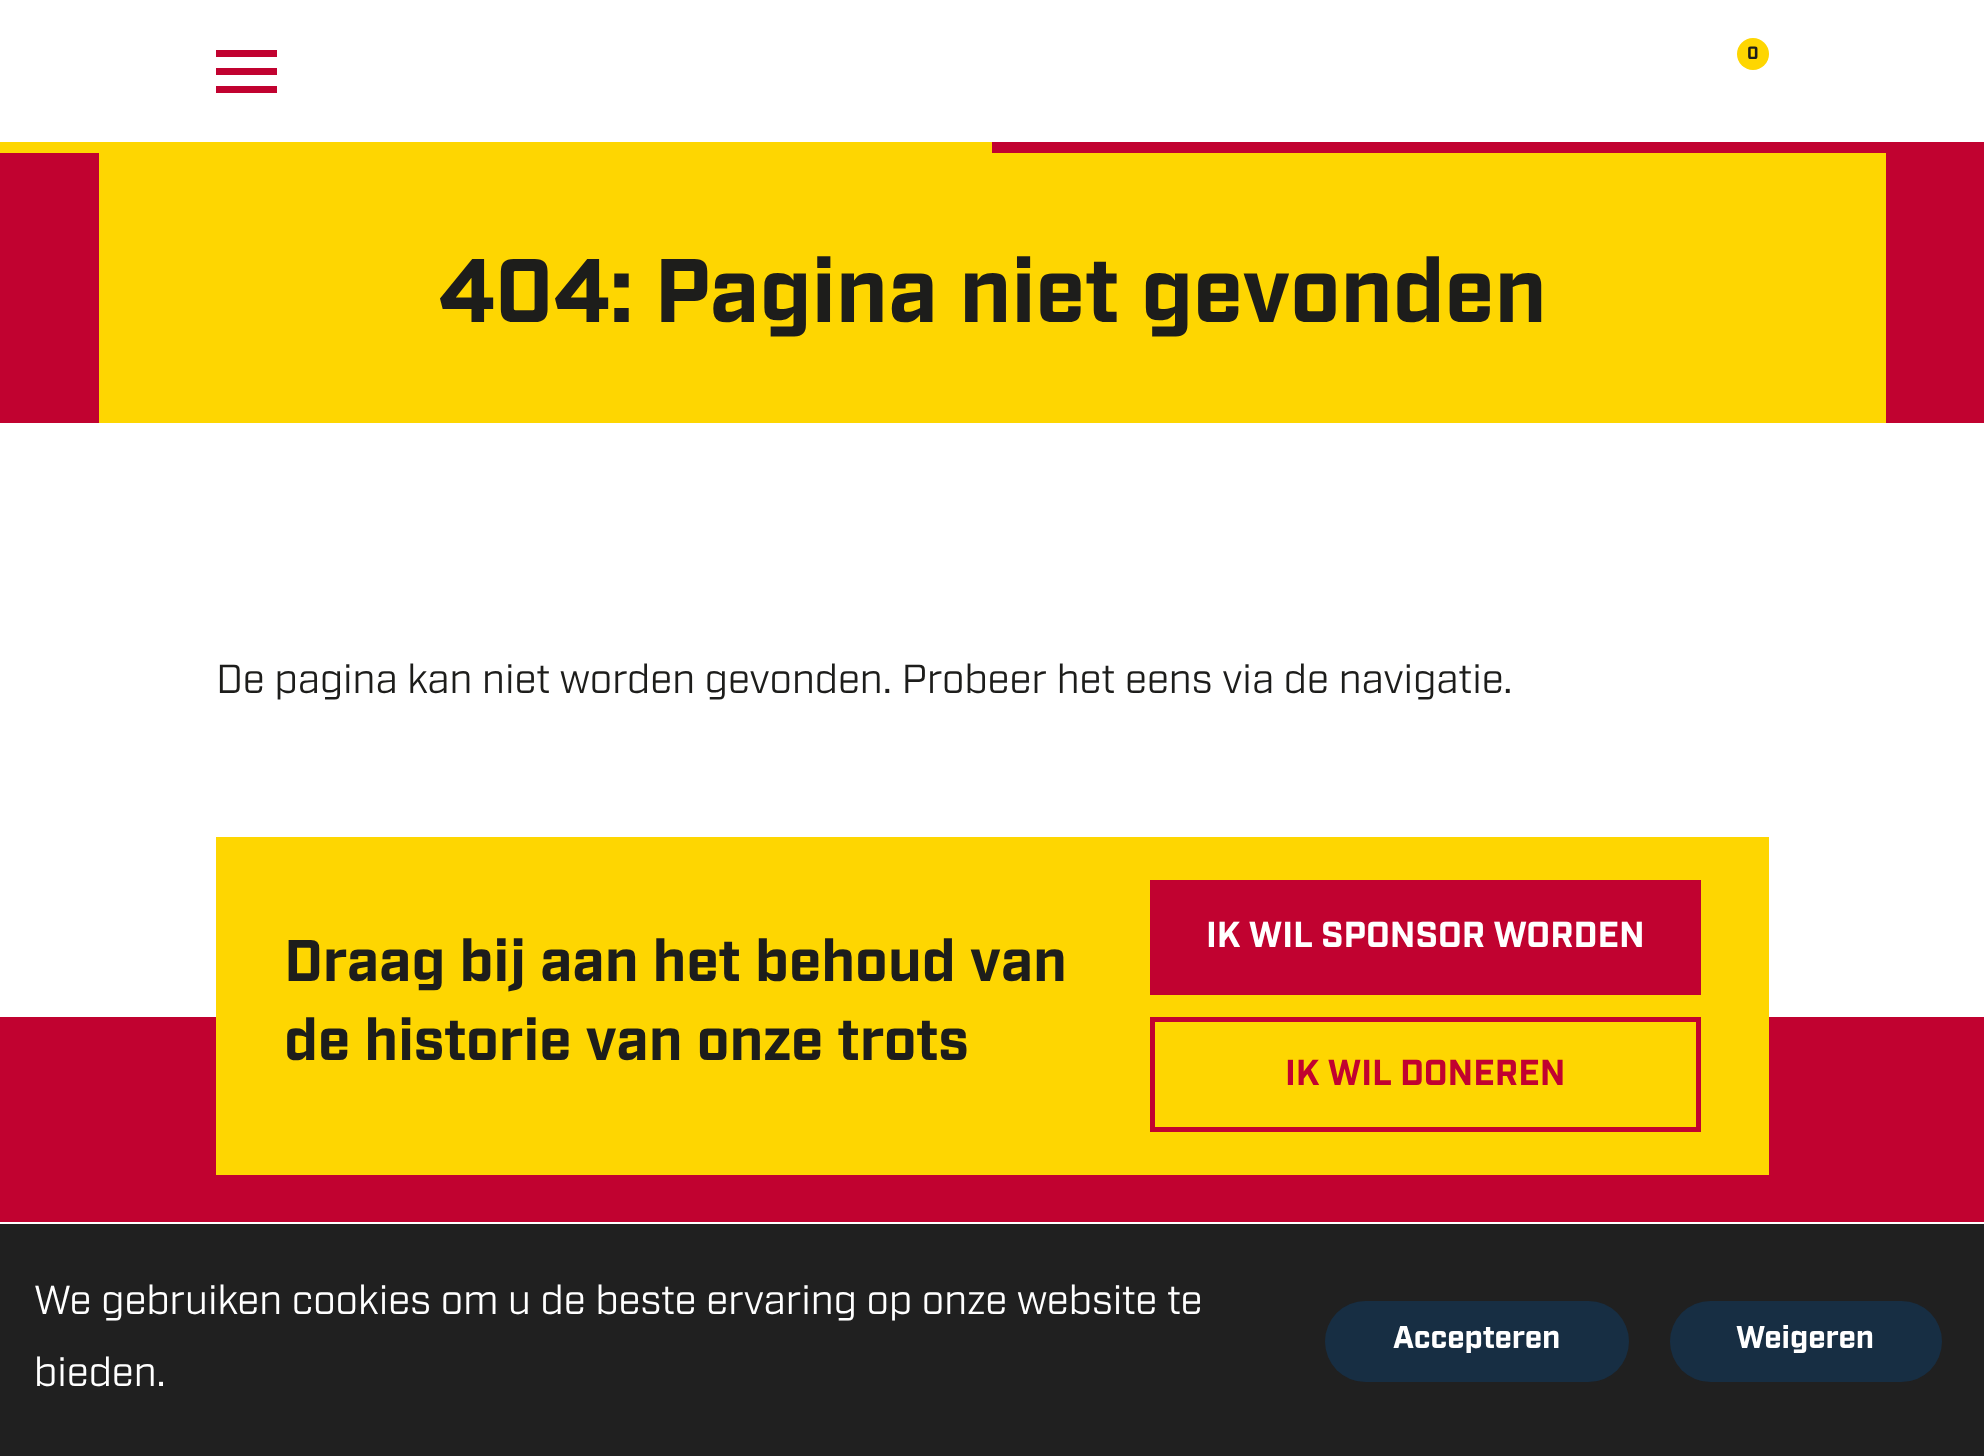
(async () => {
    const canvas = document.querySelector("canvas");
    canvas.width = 1984;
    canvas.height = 1456;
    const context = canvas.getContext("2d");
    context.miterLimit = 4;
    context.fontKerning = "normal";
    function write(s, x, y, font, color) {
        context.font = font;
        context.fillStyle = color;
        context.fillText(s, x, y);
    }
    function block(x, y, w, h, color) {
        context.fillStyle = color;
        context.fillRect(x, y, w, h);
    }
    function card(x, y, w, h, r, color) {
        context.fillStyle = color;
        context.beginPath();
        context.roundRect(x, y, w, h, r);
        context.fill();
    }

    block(0, 0, 1984, 1456, "rgb(255, 255, 255)");
    block(216, 68, 61, 7, "rgb(193, 2, 48)");
    block(216, 50, 61, 7, "rgb(193, 2, 48)");
    block(216, 86, 61, 7, "rgb(193, 2, 48)");
    context.fillStyle = "rgb(254, 214, 1)";
    context.beginPath();
    context.arc(1753, 54, 16, 0, Math.PI * 2);
    context.fill();
    write("0", 1747, 59, "bold 18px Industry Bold", "rgb(29, 29, 27)");
    block(0, 142, 992, 11, "rgb(254, 214, 1)");
    block(992, 142, 992, 11, "rgb(193, 2, 48)");
    block(0, 153, 1984, 270, "rgb(193, 2, 48)");
    block(99, 153, 1787, 270, "rgb(254, 214, 1)");
    write("404: Pagina niet gevonden", 438, 322, "bold 90px Industry Bold", "rgb(29, 29, 27)");
    write("De pagina kan niet worden gevonden. Probeer het eens via de navigatie.", 216, 693, "40.5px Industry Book", "rgb(29, 29, 27)");
    block(0, 1017, 1984, 205, "rgb(193, 2, 48)");
    block(216, 837, 1553, 338, "rgb(254, 214, 1)");
    write("Draag bij aan het behoud van", 284, 981, "bold 58.5px Industry Bold", "rgb(29, 29, 27)");
    write("de historie van onze trots", 284, 1060, "bold 58.5px Industry Bold", "rgb(29, 29, 27)");
    block(1150, 880, 551, 115, "rgb(193, 2, 48)");
    write("IK WIL SPONSOR WORDEN", 1206, 947, "bold 36px Industry Bold", "rgb(255, 255, 255)");
    context.strokeStyle = "rgb(193, 2, 48)";
    context.lineWidth = 5;
    context.strokeRect(1152.5, 1019.5, 546, 110);
    write("IK WIL DONEREN", 1285, 1085, "bold 36px Industry Bold", "rgb(193, 2, 48)");
    block(0, 1224, 1984, 232, "rgb(32, 32, 32)");
    write("We gebruiken cookies om u de beste ervaring op onze website te", 34, 1314, "40.5px Industry Book", "rgb(255, 255, 255)");
    write("bieden.", 34, 1386, "40.5px Industry Book", "rgb(255, 255, 255)");
    card(1325, 1301, 304, 81, 40.5, "rgb(23, 46, 67)");
    write("Accepteren", 1393, 1348, "bold 31.5px Industry Bold", "rgb(255, 255, 255)");
    card(1670, 1301, 272, 81, 40.5, "rgb(23, 46, 67)");
    write("Weigeren", 1736, 1348, "bold 31.5px Industry Bold", "rgb(255, 255, 255)");
})();
